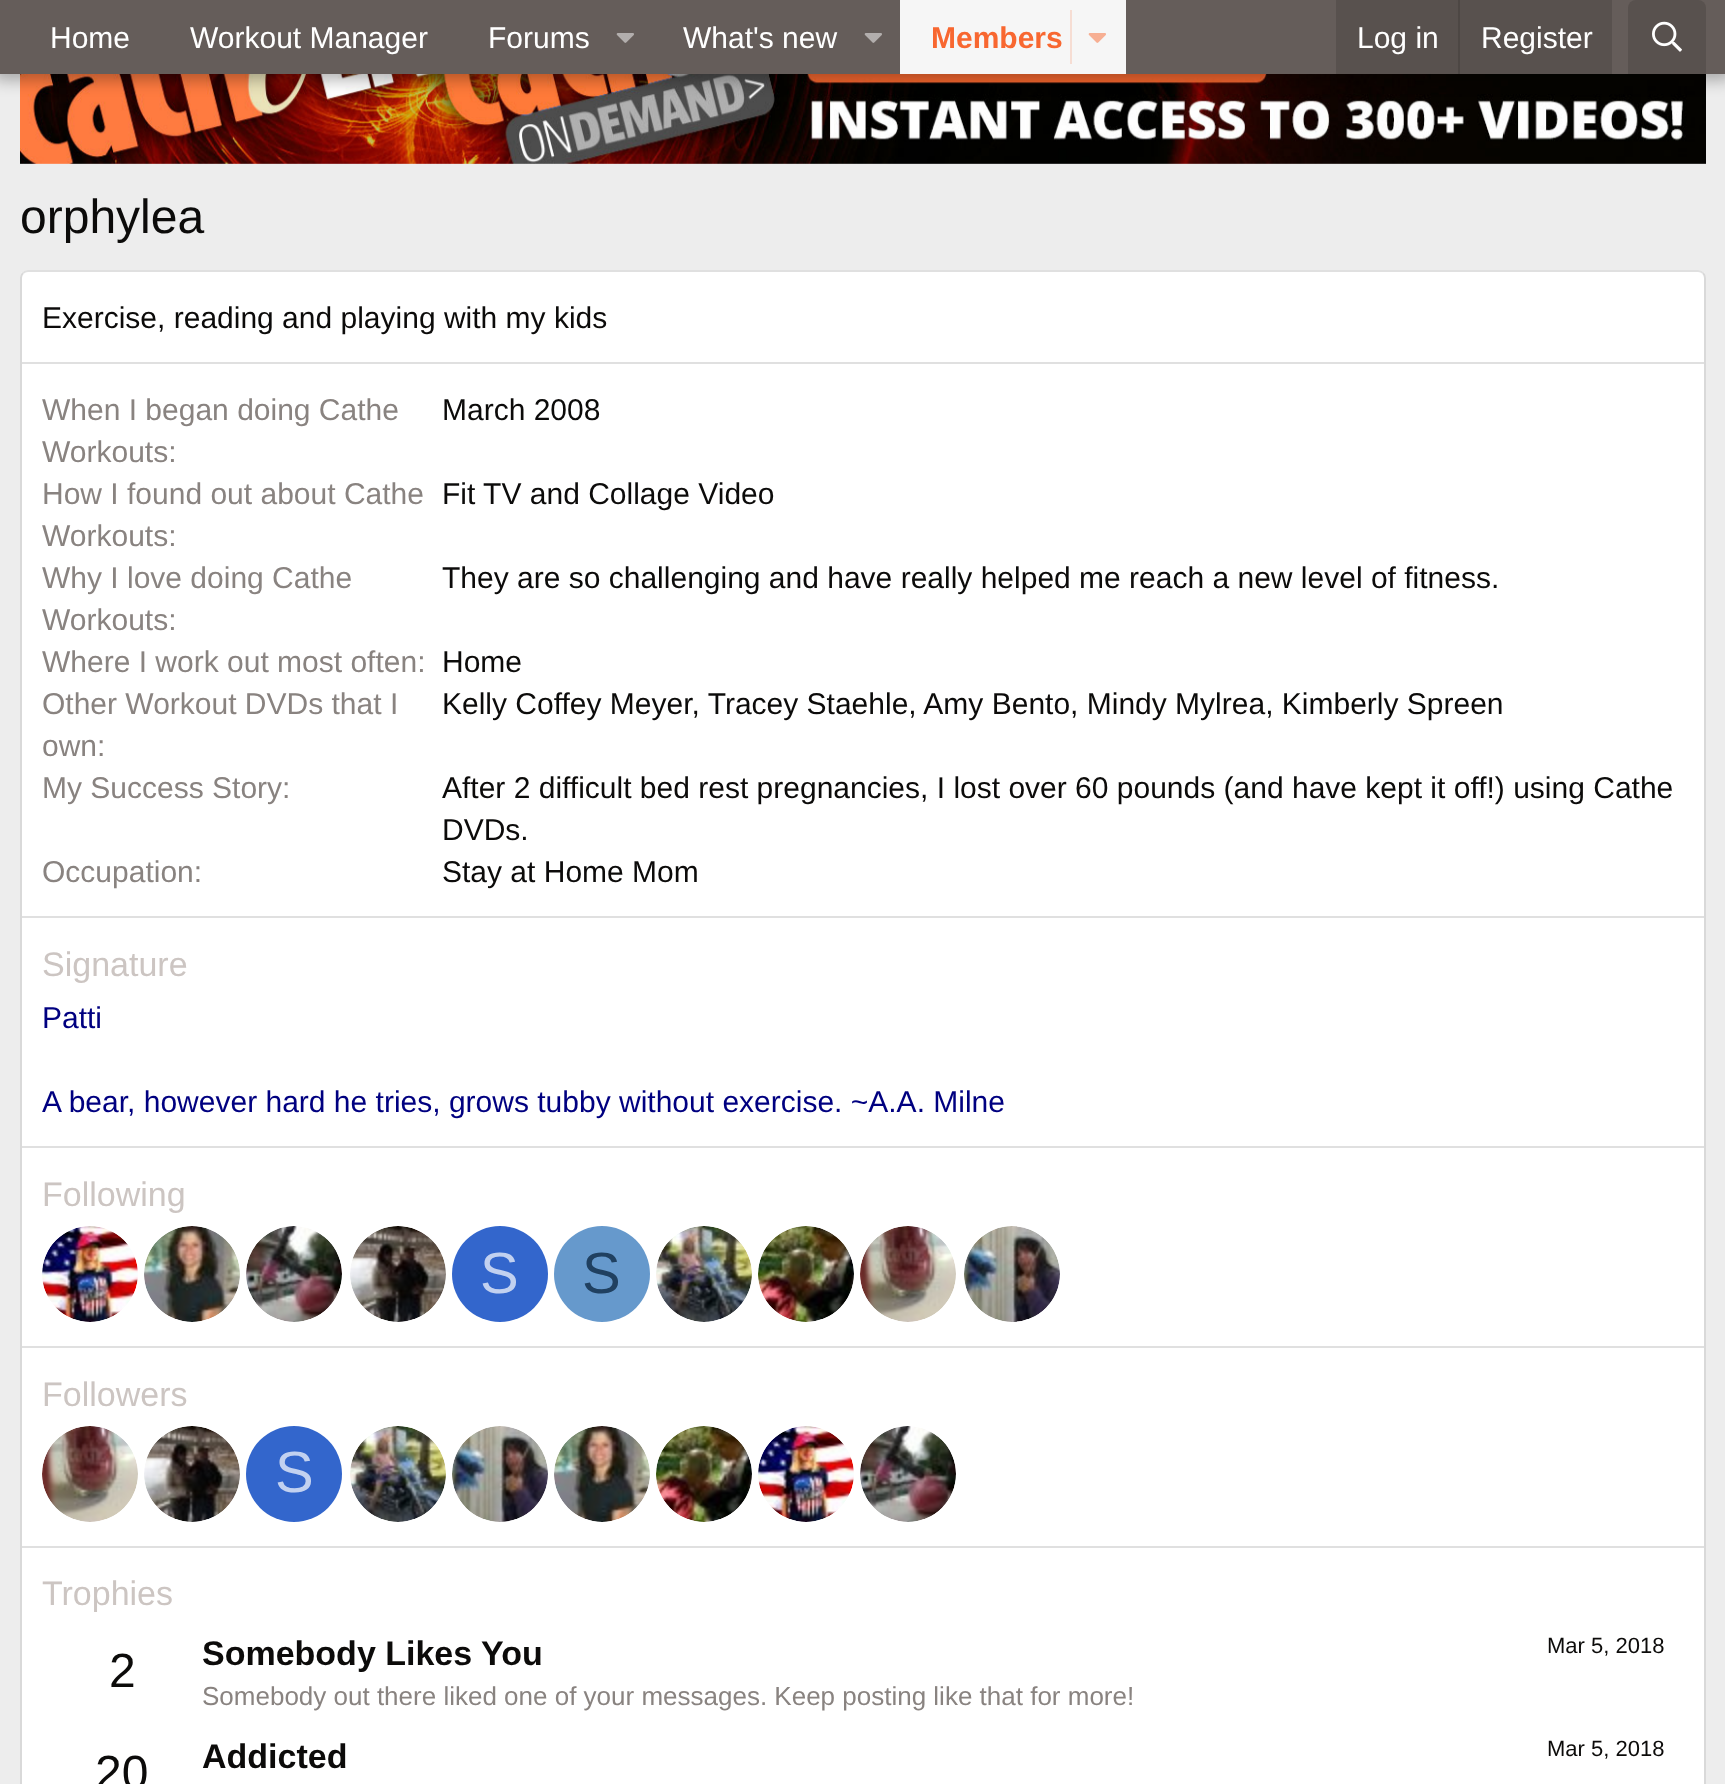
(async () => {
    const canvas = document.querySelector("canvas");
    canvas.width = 1725;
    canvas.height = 1784;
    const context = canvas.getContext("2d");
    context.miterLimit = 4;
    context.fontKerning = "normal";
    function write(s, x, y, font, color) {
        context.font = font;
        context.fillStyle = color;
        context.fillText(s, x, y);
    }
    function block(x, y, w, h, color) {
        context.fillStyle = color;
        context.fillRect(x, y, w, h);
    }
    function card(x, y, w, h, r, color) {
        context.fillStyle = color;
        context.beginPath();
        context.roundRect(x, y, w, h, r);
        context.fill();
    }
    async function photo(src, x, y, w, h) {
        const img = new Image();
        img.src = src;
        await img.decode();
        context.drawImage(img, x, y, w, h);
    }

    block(0, 0, 1725, 1784, "rgb(237, 237, 237)");
    await photo("media/4.png", 20, 74, 1686, 90);
    context.fillStyle = "rgba(0, 0, 0, 0.3)";
    context.filter = "blur(8px)";
    context.beginPath();
    context.rect(-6, -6, 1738, 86);
    context.fill();
    context.filter = "none";
    block(0, 0, 1725, 74, "rgb(101, 93, 90)");
    write("Home", 50, 48, "30px Liberation Sans", "rgb(255, 255, 255)");
    write("Workout Manager", 190, 48, "30px Liberation Sans", "rgb(255, 255, 255)");
    write("Forums", 488, 48, "30px Liberation Sans", "rgb(255, 255, 255)");
    await photo("media/1.png", 616, 33, 18, 10);
    write("What's new", 683, 48, "30px Liberation Sans", "rgb(255, 255, 255)");
    await photo("media/1.png", 864, 33, 18, 10);
    block(900, 0, 226, 74, "rgb(246, 246, 246)");
    write("Members", 931, 48, "bold 30px Liberation Sans", "rgb(248, 103, 48)");
    block(1070, 10, 2, 54, "rgb(246, 221, 211)");
    await photo("media/2.png", 1088, 33, 18, 10);
    block(1336, 0, 276, 74, "rgb(88, 81, 78)");
    write("Log in", 1357, 48, "30px Liberation Sans", "rgb(255, 255, 255)");
    block(1458, 0, 2, 74, "rgb(77, 71, 68)");
    write("Register", 1481, 48, "30px Liberation Sans", "rgb(255, 255, 255)");
    context.fillStyle = "rgb(88, 81, 78)";
    context.beginPath();
    context.roundRect(1628, 0, 78, 74, [8, 8, 0, 0]);
    context.fill();
    await photo("media/3.png", 1652, 21, 30, 31);
    write("orphylea", 20, 233, "48px Liberation Sans", "rgb(12, 11, 10)");
    card(20, 270, 1686, 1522, 8, "rgb(255, 255, 255)");
    context.beginPath();
    context.moveTo(23, 273);
    context.bezierCurveTo(24.5, 271.5, 26, 271, 28, 271);
    context.lineTo(1698, 271);
    context.bezierCurveTo(1700, 271, 1701.5, 271.5, 1703, 273);
    context.strokeStyle = "rgb(224, 224, 224)";
    context.lineWidth = 2;
    context.stroke();
    context.beginPath();
    context.moveTo(1703, 273);
    context.bezierCurveTo(1704.5, 274.5, 1705, 276, 1705, 278);
    context.lineTo(1705, 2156);
    context.bezierCurveTo(1705, 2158, 1704.5, 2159.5, 1703, 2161);
    context.strokeStyle = "rgb(217, 217, 217)";
    context.stroke();
    context.beginPath();
    context.moveTo(23, 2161);
    context.bezierCurveTo(21.5, 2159.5, 21, 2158, 21, 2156);
    context.lineTo(21, 278);
    context.bezierCurveTo(21, 276, 21.5, 274.5, 23, 273);
    context.stroke();
    write("Exercise, reading and playing with my kids", 42, 328, "30px Liberation Sans", "rgb(12, 11, 10)");
    block(22, 362, 1682, 2, "rgb(224, 224, 224)");
    write("When I began doing Cathe", 42, 420, "30px Liberation Sans", "rgb(137, 131, 128)");
    write("Workouts:", 42, 462, "30px Liberation Sans", "rgb(137, 131, 128)");
    write("March 2008", 442, 420, "30px Liberation Sans", "rgb(12, 11, 10)");
    write("How I found out about Cathe", 42, 504, "30px Liberation Sans", "rgb(137, 131, 128)");
    write("Workouts:", 42, 546, "30px Liberation Sans", "rgb(137, 131, 128)");
    write("Fit TV and Collage Video", 442, 504, "30px Liberation Sans", "rgb(12, 11, 10)");
    write("Why I love doing Cathe", 42, 588, "30px Liberation Sans", "rgb(137, 131, 128)");
    write("Workouts:", 42, 630, "30px Liberation Sans", "rgb(137, 131, 128)");
    write("They are so challenging and have really helped me reach a new level of fitness.", 442, 588, "30px Liberation Sans", "rgb(12, 11, 10)");
    write("Where I work out most often:", 42, 672, "30px Liberation Sans", "rgb(137, 131, 128)");
    write("Home", 442, 672, "30px Liberation Sans", "rgb(12, 11, 10)");
    write("Other Workout DVDs that I", 42, 714, "30px Liberation Sans", "rgb(137, 131, 128)");
    write("own:", 42, 756, "30px Liberation Sans", "rgb(137, 131, 128)");
    write("Kelly Coffey Meyer, Tracey Staehle, Amy Bento, Mindy Mylrea, Kimberly Spreen", 442, 714, "30px Liberation Sans", "rgb(12, 11, 10)");
    write("My Success Story:", 42, 798, "30px Liberation Sans", "rgb(137, 131, 128)");
    write("After 2 difficult bed rest pregnancies, I lost over 60 pounds (and have kept it off!) using Cathe", 442, 798, "30px Liberation Sans", "rgb(12, 11, 10)");
    write("DVDs.", 442, 840, "30px Liberation Sans", "rgb(12, 11, 10)");
    write("Occupation:", 42, 882, "30px Liberation Sans", "rgb(137, 131, 128)");
    write("Stay at Home Mom", 442, 882, "30px Liberation Sans", "rgb(12, 11, 10)");
    block(22, 916, 1682, 2, "rgb(224, 224, 224)");
    write("Signature", 42, 976, "34px Liberation Sans", "rgb(204, 197, 194)");
    write("Patti", 42, 1028, "30px Liberation Sans", "rgb(0, 0, 128)");
    write("A bear, however hard he tries, grows tubby without exercise. ~A.A. Milne", 42, 1112, "30px Liberation Sans", "rgb(0, 0, 128)");
    block(22, 1146, 1682, 2, "rgb(224, 224, 224)");
    write("Following", 42, 1206, "34px Liberation Sans", "rgb(204, 197, 194)");
    await photo("media/5.png", 42, 1226, 96, 96);
    await photo("media/6.png", 144, 1226, 96, 96);
    await photo("media/7.png", 246, 1226, 96, 96);
    await photo("media/8.png", 350, 1226, 96, 96);
    context.fillStyle = "rgb(51, 102, 204)";
    context.beginPath();
    context.arc(500, 1274, 48, 0, Math.PI * 2);
    context.fill();
    write("S", 480, 1293, "58px Liberation Sans", "rgb(194, 209, 240)");
    context.fillStyle = "rgb(102, 153, 204)";
    context.beginPath();
    context.arc(602, 1274, 48, 0, Math.PI * 2);
    context.fill();
    write("S", 582, 1293, "58px Liberation Sans", "rgb(32, 64, 96)");
    await photo("media/9.png", 656, 1226, 96, 96);
    await photo("media/10.png", 758, 1226, 96, 96);
    await photo("media/11.png", 860, 1226, 96, 96);
    await photo("media/12.png", 964, 1226, 96, 96);
    block(22, 1346, 1682, 2, "rgb(224, 224, 224)");
    write("Followers", 42, 1406, "34px Liberation Sans", "rgb(204, 197, 194)");
    await photo("media/11.png", 42, 1426, 96, 96);
    await photo("media/8.png", 144, 1426, 96, 96);
    context.fillStyle = "rgb(51, 102, 204)";
    context.beginPath();
    context.arc(294, 1474, 48, 0, Math.PI * 2);
    context.fill();
    write("S", 275, 1492, "58px Liberation Sans", "rgb(194, 209, 240)");
    await photo("media/9.png", 350, 1426, 96, 96);
    await photo("media/13.png", 452, 1426, 96, 96);
    await photo("media/6.png", 554, 1426, 96, 96);
    await photo("media/14.png", 656, 1426, 96, 96);
    await photo("media/15.png", 758, 1426, 96, 96);
    await photo("media/16.png", 860, 1426, 96, 96);
    block(22, 1546, 1682, 2, "rgb(224, 224, 224)");
    write("Trophies", 42, 1605, "34px Liberation Sans", "rgb(204, 197, 194)");
    write("2", 109, 1687, "48px Liberation Sans", "rgb(12, 11, 10)");
    write("Somebody Likes You", 202, 1665, "bold 34px Liberation Sans", "rgb(12, 11, 10)");
    write("Mar 5, 2018", 1547, 1653, "22px Liberation Sans", "rgb(12, 11, 10)");
    write("Somebody out there liked one of your messages. Keep posting like that for more!", 202, 1705, "26px Liberation Sans", "rgb(137, 131, 128)");
    write("20", 95, 1789, "48px Liberation Sans", "rgb(12, 11, 10)");
    write("Addicted", 202, 1768, "bold 34px Liberation Sans", "rgb(12, 11, 10)");
    write("Mar 5, 2018", 1547, 1756, "22px Liberation Sans", "rgb(12, 11, 10)");
})();
